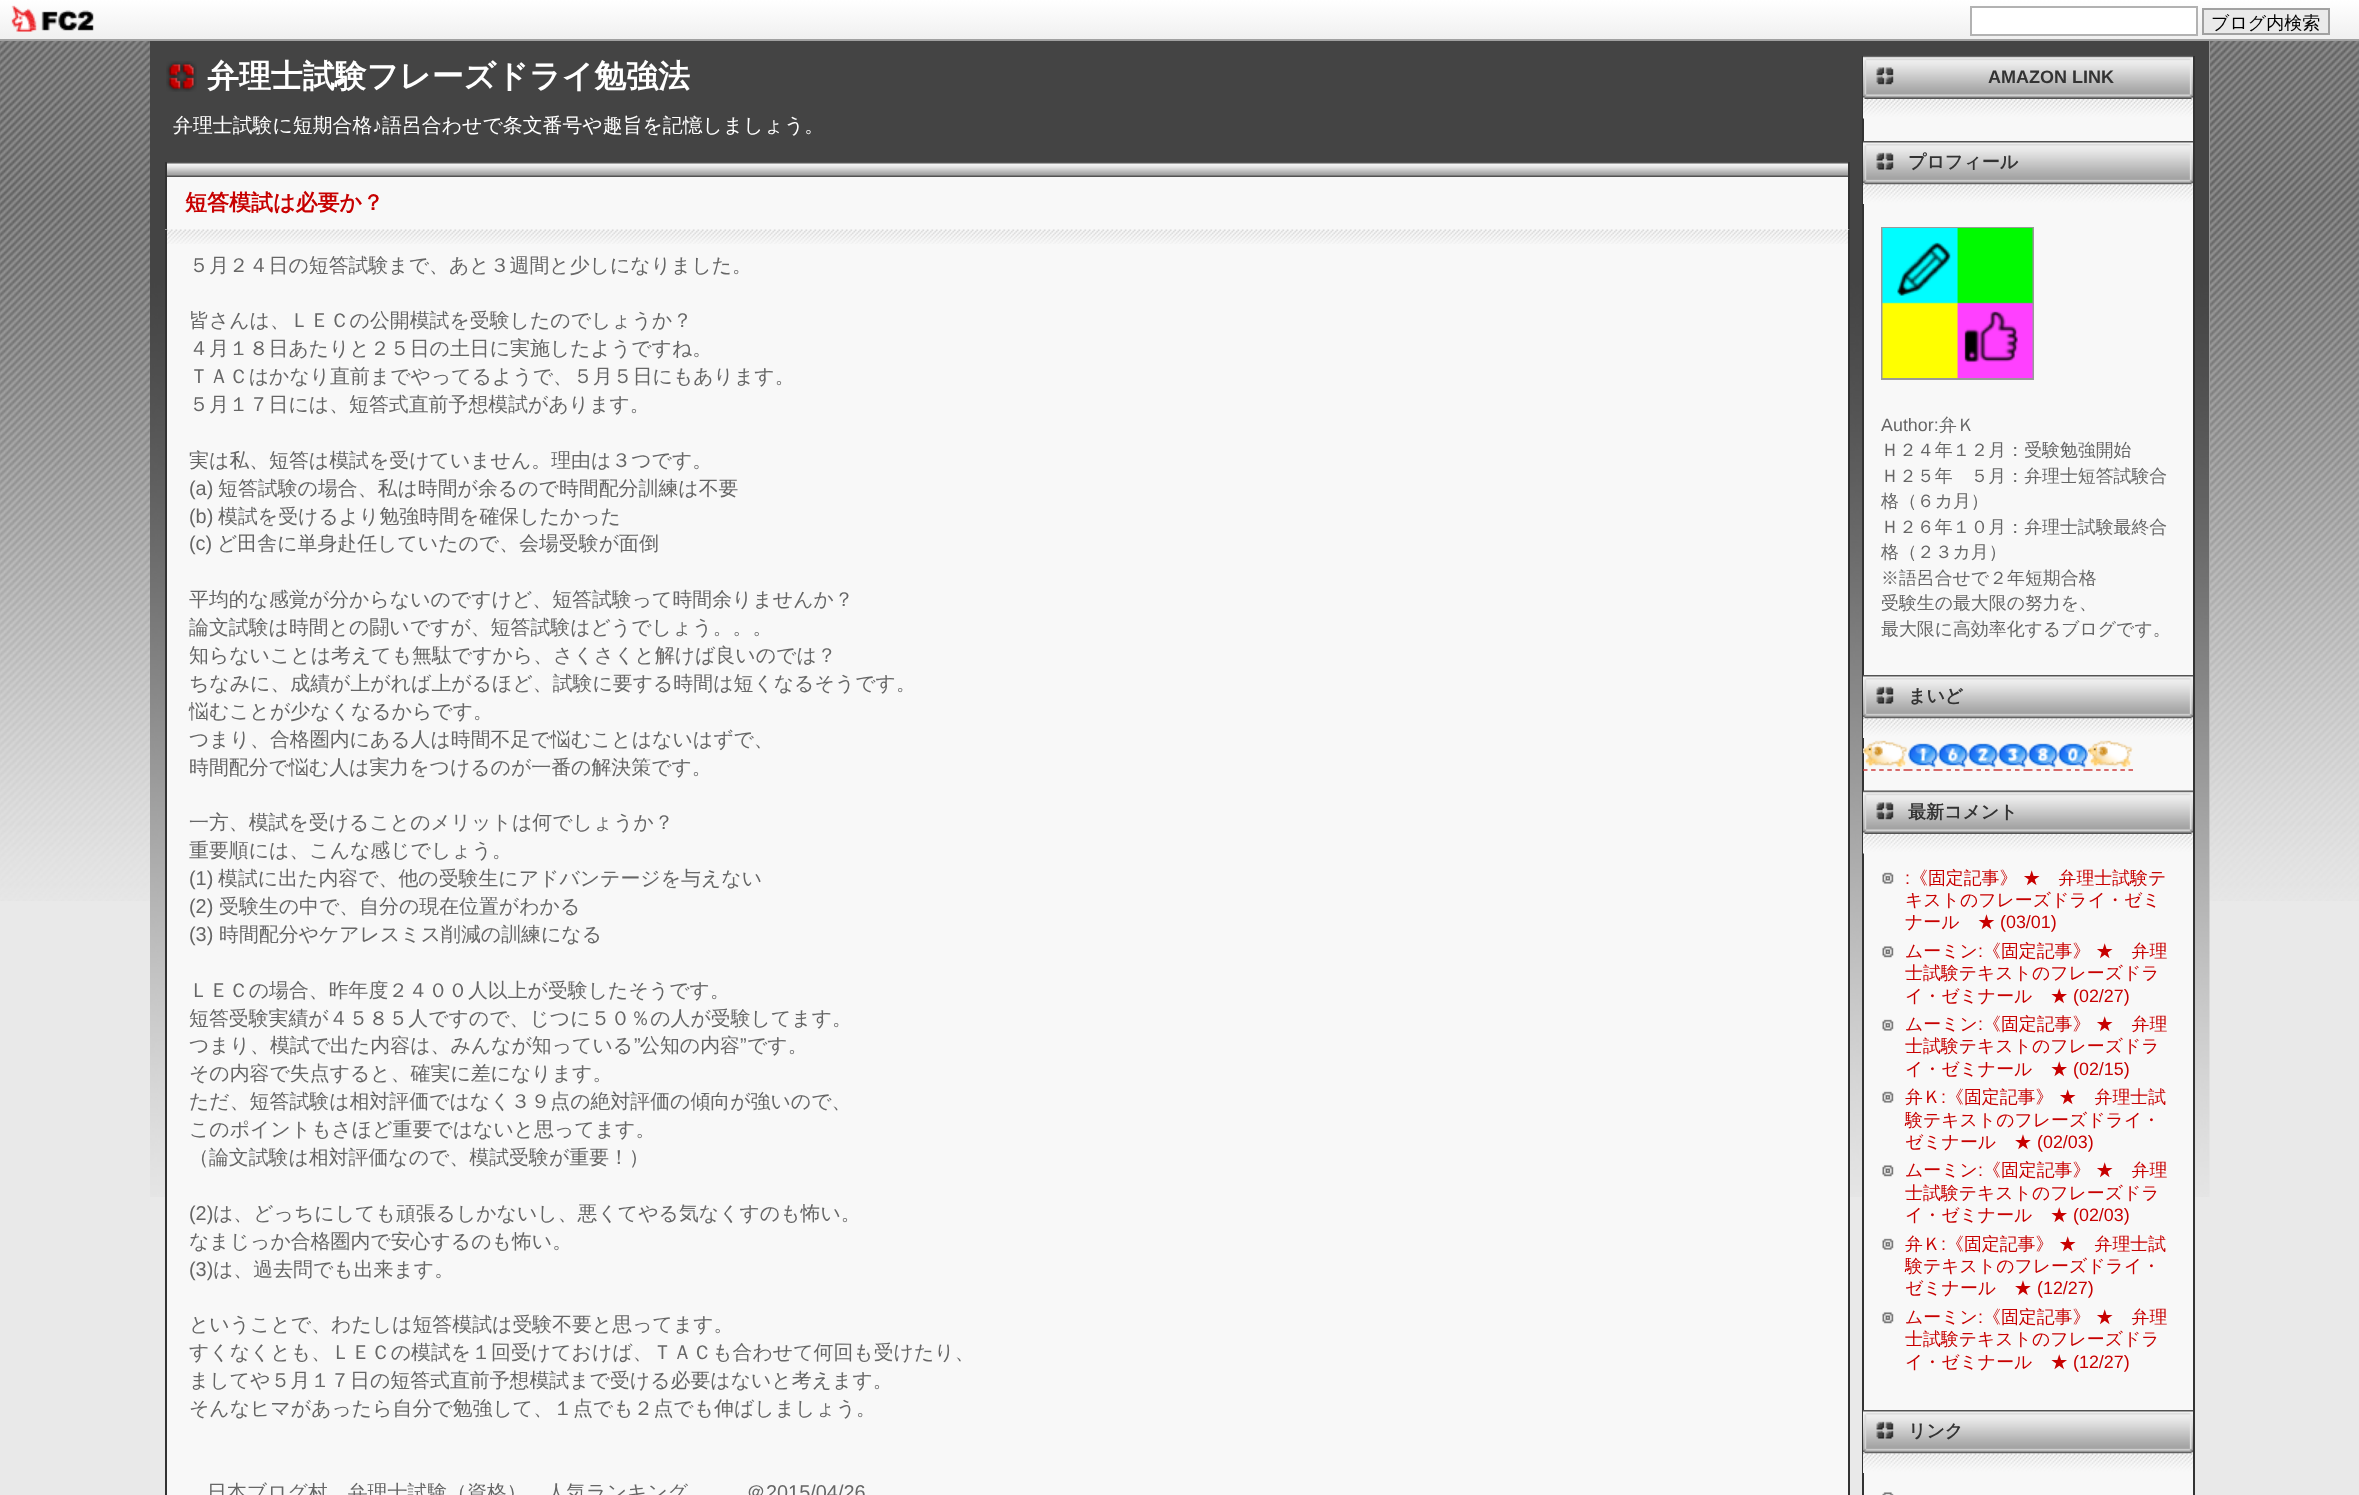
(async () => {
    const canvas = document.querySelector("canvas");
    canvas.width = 2359;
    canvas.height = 1495;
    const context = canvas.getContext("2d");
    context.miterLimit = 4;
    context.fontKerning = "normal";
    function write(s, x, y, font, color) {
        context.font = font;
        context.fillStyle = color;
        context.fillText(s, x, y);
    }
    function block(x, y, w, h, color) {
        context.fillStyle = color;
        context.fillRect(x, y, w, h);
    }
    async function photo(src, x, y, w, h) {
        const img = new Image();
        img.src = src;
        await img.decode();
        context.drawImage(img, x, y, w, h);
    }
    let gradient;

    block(0, 0, 2359, 1495, "rgb(233, 233, 233)");
    await photo("media/1.png", 0, 41, 2359, 860);
    gradient = context.createLinearGradient(0, 0, 0, 39);
    gradient.addColorStop(0, "rgb(255, 255, 255)");
    gradient.addColorStop(1, "rgb(240, 240, 240)");
    context.fillStyle = gradient;
    context.fillRect(0, 0, 2359, 39);
    block(0, 39, 2359, 2, "rgb(161, 161, 161)");
    await photo("media/2.png", 11, 5, 83, 27);
    context.fillStyle = "rgb(255, 255, 255)";
    context.beginPath();
    context.rect(1971, 7, 226, 28);
    context.fill();
    context.strokeStyle = "rgb(178, 178, 178)";
    context.lineWidth = 2;
    context.stroke();
    context.fillStyle = "rgb(234, 234, 234)";
    context.beginPath();
    context.rect(2203, 9, 126, 25);
    context.fill();
    context.strokeStyle = "rgb(161, 161, 161)";
    context.stroke();
    write("ブログ内検索", 2211, 29, "500 18px WenQuanYi Zen Hei", "rgb(0, 0, 0)");
    block(150, 41, 2060, 860, "rgb(233, 233, 233)");
    await photo("media/3.png", 150, 41, 2060, 1156);
    await photo("media/4.png", 166, 61, 31, 31);
    write("弁理士試験フレーズドライ勉強法", 207, 87, "bold 31.9px WenQuanYi Zen Hei", "rgb(255, 255, 255)");
    block(1864, 118, 329, 1377, "rgb(248, 248, 248)");
    block(2193, 56, 2, 1439, "rgb(51, 51, 51)");
    block(1862, 56, 2, 1439, "rgb(51, 51, 51)");
    await photo("media/5.png", 1863, 55, 330, 44);
    write("AMAZON LINK", 1988, 83, "bold 18px Liberation Sans", "rgb(51, 51, 51)");
    await photo("media/6.png", 1863, 99, 330, 20);
    await photo("media/7.png", 1863, 141, 330, 44);
    write("プロフィール", 1908, 168, "bold 18px WenQuanYi Zen Hei", "rgb(51, 51, 51)");
    await photo("media/8.png", 1863, 184, 330, 20);
    context.strokeStyle = "rgb(153, 153, 153)";
    context.strokeRect(1882, 228, 151, 151);
    await photo("media/9.png", 1882, 228, 151, 150);
    write("Author:", 1881, 431, "17.9px Liberation Sans", "rgb(102, 102, 102)");
    write("弁Ｋ", 1939, 431, "500 17.9px WenQuanYi Zen Hei", "rgb(102, 102, 102)");
    write("Ｈ２４年１２月：受験勉強開始", 1881, 456, "500 17.9px WenQuanYi Zen Hei", "rgb(102, 102, 102)");
    write("Ｈ２５年　５月：弁理士短答試験合", 1881, 482, "500 17.9px WenQuanYi Zen Hei", "rgb(102, 102, 102)");
    write("格（６カ月）", 1881, 507, "500 17.9px WenQuanYi Zen Hei", "rgb(102, 102, 102)");
    write("Ｈ２６年１０月：弁理士試験最終合", 1881, 533, "500 17.9px WenQuanYi Zen Hei", "rgb(102, 102, 102)");
    write("格（２３カ月）", 1881, 558, "500 17.9px WenQuanYi Zen Hei", "rgb(102, 102, 102)");
    write("※語呂合せで２年短期合格", 1881, 584, "500 17.9px WenQuanYi Zen Hei", "rgb(102, 102, 102)");
    write("受験生の最大限の努力を、", 1881, 609, "500 17.9px WenQuanYi Zen Hei", "rgb(102, 102, 102)");
    write("最大限に高効率化するブログです。", 1881, 635, "500 17.9px WenQuanYi Zen Hei", "rgb(102, 102, 102)");
    await photo("media/7.png", 1863, 675, 330, 44);
    write("まいど", 1908, 702, "bold 18px WenQuanYi Zen Hei", "rgb(51, 51, 51)");
    await photo("media/10.png", 1863, 718, 330, 20);
    await photo("media/11.png", 1863, 740, 45, 29);
    await photo("media/12.png", 1908, 743, 30, 26);
    await photo("media/13.png", 1938, 743, 30, 26);
    await photo("media/14.png", 1968, 743, 30, 26);
    await photo("media/15.png", 1998, 743, 30, 26);
    await photo("media/16.png", 2028, 743, 30, 26);
    await photo("media/17.png", 2058, 743, 30, 26);
    await photo("media/18.png", 2088, 740, 45, 29);
    context.beginPath();
    context.moveTo(1863, 770);
    context.lineTo(1908, 770);
    context.strokeStyle = "rgb(204, 61, 61)";
    context.lineWidth = 1.5;
    context.setLineDash([4.5, 3.6]);
    context.stroke();
    context.beginPath();
    context.moveTo(1908, 770);
    context.lineTo(1938, 770);
    context.moveTo(1938, 770);
    context.lineTo(1968, 770);
    context.setLineDash([4.5, 4]);
    context.stroke();
    context.beginPath();
    context.moveTo(1968, 770);
    context.lineTo(1998, 770);
    context.moveTo(1998, 770);
    context.lineTo(2028, 770);
    context.stroke();
    context.beginPath();
    context.moveTo(2028, 770);
    context.lineTo(2058, 770);
    context.moveTo(2058, 770);
    context.lineTo(2088, 770);
    context.stroke();
    context.beginPath();
    context.moveTo(2088, 770);
    context.lineTo(2133, 770);
    context.setLineDash([4.5, 3.6]);
    context.stroke();
    await photo("media/19.png", 1863, 790, 330, 44);
    write("最新コメント", 1908, 818, "bold 18px WenQuanYi Zen Hei", "rgb(51, 51, 51)");
    await photo("media/20.png", 1863, 834, 330, 20);
    await photo("media/21.png", 1882, 872, 12, 12);
    write(":", 1905, 884, "17.9px Liberation Sans", "rgb(199, 0, 0)");
    write("《固定記事》 ★　弁理士試験テ", 1910, 884, "500 17.9px WenQuanYi Zen Hei", "rgb(199, 0, 0)");
    write("キストのフレーズドライ・ゼミ", 1905, 906, "500 17.9px WenQuanYi Zen Hei", "rgb(199, 0, 0)");
    write("ナール　★", 1905, 928, "500 17.9px WenQuanYi Zen Hei", "rgb(199, 0, 0)");
    write("(03/01)", 2000, 928, "17.9px Liberation Sans", "rgb(199, 0, 0)");
    await photo("media/22.png", 1882, 946, 12, 12);
    write("ムーミン", 1905, 957, "500 17.9px WenQuanYi Zen Hei", "rgb(199, 0, 0)");
    write(":", 1978, 957, "17.9px Liberation Sans", "rgb(199, 0, 0)");
    write("《固定記事》 ★　弁理", 1983, 957, "500 17.9px WenQuanYi Zen Hei", "rgb(199, 0, 0)");
    write("士試験テキストのフレーズドラ", 1905, 979, "500 17.9px WenQuanYi Zen Hei", "rgb(199, 0, 0)");
    write("イ・ゼミナール　★", 1905, 1002, "500 17.9px WenQuanYi Zen Hei", "rgb(199, 0, 0)");
    write("(02/27)", 2073, 1002, "17.9px Liberation Sans", "rgb(199, 0, 0)");
    await photo("media/21.png", 1882, 1019, 12, 12);
    write("ムーミン", 1905, 1030, "500 17.9px WenQuanYi Zen Hei", "rgb(199, 0, 0)");
    write(":", 1978, 1030, "17.9px Liberation Sans", "rgb(199, 0, 0)");
    write("《固定記事》 ★　弁理", 1983, 1030, "500 17.9px WenQuanYi Zen Hei", "rgb(199, 0, 0)");
    write("士試験テキストのフレーズドラ", 1905, 1052, "500 17.9px WenQuanYi Zen Hei", "rgb(199, 0, 0)");
    write("イ・ゼミナール　★", 1905, 1075, "500 17.9px WenQuanYi Zen Hei", "rgb(199, 0, 0)");
    write("(02/15)", 2073, 1075, "17.9px Liberation Sans", "rgb(199, 0, 0)");
    await photo("media/21.png", 1882, 1091, 12, 12);
    write("弁Ｋ", 1905, 1103, "500 17.9px WenQuanYi Zen Hei", "rgb(199, 0, 0)");
    write(":", 1941, 1103, "17.9px Liberation Sans", "rgb(199, 0, 0)");
    write("《固定記事》 ★　弁理士試", 1946, 1103, "500 17.9px WenQuanYi Zen Hei", "rgb(199, 0, 0)");
    write("験テキストのフレーズドライ・", 1905, 1126, "500 17.9px WenQuanYi Zen Hei", "rgb(199, 0, 0)");
    write("ゼミナール　★", 1905, 1148, "500 17.9px WenQuanYi Zen Hei", "rgb(199, 0, 0)");
    write("(02/03)", 2037, 1148, "17.9px Liberation Sans", "rgb(199, 0, 0)");
    await photo("media/22.png", 1882, 1165, 12, 12);
    write("ムーミン", 1905, 1176, "500 17.9px WenQuanYi Zen Hei", "rgb(199, 0, 0)");
    write(":", 1978, 1176, "17.9px Liberation Sans", "rgb(199, 0, 0)");
    write("《固定記事》 ★　弁理", 1983, 1176, "500 17.9px WenQuanYi Zen Hei", "rgb(199, 0, 0)");
    write("士試験テキストのフレーズドラ", 1905, 1199, "500 17.9px WenQuanYi Zen Hei", "rgb(199, 0, 0)");
    write("イ・ゼミナール　★", 1905, 1221, "500 17.9px WenQuanYi Zen Hei", "rgb(199, 0, 0)");
    write("(02/03)", 2073, 1221, "17.9px Liberation Sans", "rgb(199, 0, 0)");
    await photo("media/21.png", 1882, 1238, 12, 12);
    write("弁Ｋ", 1905, 1250, "500 17.9px WenQuanYi Zen Hei", "rgb(199, 0, 0)");
    write(":", 1941, 1250, "17.9px Liberation Sans", "rgb(199, 0, 0)");
    write("《固定記事》 ★　弁理士試", 1946, 1250, "500 17.9px WenQuanYi Zen Hei", "rgb(199, 0, 0)");
    write("験テキストのフレーズドライ・", 1905, 1272, "500 17.9px WenQuanYi Zen Hei", "rgb(199, 0, 0)");
    write("ゼミナール　★", 1905, 1294, "500 17.9px WenQuanYi Zen Hei", "rgb(199, 0, 0)");
    write("(12/27)", 2037, 1294, "17.9px Liberation Sans", "rgb(199, 0, 0)");
    await photo("media/22.png", 1882, 1312, 12, 12);
    write("ムーミン", 1905, 1323, "500 17.9px WenQuanYi Zen Hei", "rgb(199, 0, 0)");
    write(":", 1978, 1323, "17.9px Liberation Sans", "rgb(199, 0, 0)");
    write("《固定記事》 ★　弁理", 1983, 1323, "500 17.9px WenQuanYi Zen Hei", "rgb(199, 0, 0)");
    write("士試験テキストのフレーズドラ", 1905, 1345, "500 17.9px WenQuanYi Zen Hei", "rgb(199, 0, 0)");
    write("イ・ゼミナール　★", 1905, 1368, "500 17.9px WenQuanYi Zen Hei", "rgb(199, 0, 0)");
    write("(12/27)", 2073, 1368, "17.9px Liberation Sans", "rgb(199, 0, 0)");
    await photo("media/7.png", 1863, 1410, 330, 44);
    write("リンク", 1908, 1437, "bold 18px WenQuanYi Zen Hei", "rgb(51, 51, 51)");
    await photo("media/23.png", 1863, 1453, 330, 20);
    await photo("media/24.png", 1882, 1492, 12, 3);
    write("弁理士試験に短期合格", 173, 132, "500 19.9px WenQuanYi Zen Hei", "rgb(255, 255, 255)");
    write("♪", 372, 132, "19.9px Liberation Sans", "rgb(255, 255, 255)");
    write("語呂合わせで条文番号や趣旨を記憶しましょう。", 382, 132, "500 19.9px WenQuanYi Zen Hei", "rgb(255, 255, 255)");
    block(167, 177, 1681, 53, "rgb(248, 248, 248)");
    await photo("media/25.png", 167, 162, 1681, 15);
    block(1848, 162, 2, 68, "rgb(51, 51, 51)");
    block(165, 162, 2, 68, "rgb(51, 51, 51)");
    write("短答模試は必要か？", 185, 210, "bold 22px WenQuanYi Zen Hei", "rgb(199, 0, 0)");
    block(167, 244, 1681, 1251, "rgb(248, 248, 248)");
    await photo("media/26.png", 165, 229, 1685, 15);
    block(1848, 230, 2, 1265, "rgb(51, 51, 51)");
    block(165, 230, 2, 1265, "rgb(51, 51, 51)");
    write("５月２４日の短答試験まで、あと３週間と少しになりました。", 189, 272, "500 19.9px WenQuanYi Zen Hei", "rgb(102, 102, 102)");
    write("皆さんは、ＬＥＣの公開模試を受験したのでしょうか？", 189, 327, "500 19.9px WenQuanYi Zen Hei", "rgb(102, 102, 102)");
    write("４月１８日あたりと２５日の土日に実施したようですね。", 189, 355, "500 19.9px WenQuanYi Zen Hei", "rgb(102, 102, 102)");
    write("ＴＡＣはかなり直前までやってるようで、５月５日にもあります。", 189, 383, "500 19.9px WenQuanYi Zen Hei", "rgb(102, 102, 102)");
    write("５月１７日には、短答式直前予想模試があります。", 189, 411, "500 19.9px WenQuanYi Zen Hei", "rgb(102, 102, 102)");
    write("実は私、短答は模試を受けていません。理由は３つです。", 189, 467, "500 19.9px WenQuanYi Zen Hei", "rgb(102, 102, 102)");
    write("(a)", 189, 495, "19.9px Liberation Sans", "rgb(102, 102, 102)");
    write("短答試験の場合、私は時間が余るので時間配分訓練は不要", 218, 495, "500 19.9px WenQuanYi Zen Hei", "rgb(102, 102, 102)");
    write("(b)", 189, 523, "19.9px Liberation Sans", "rgb(102, 102, 102)");
    write("模試を受けるより勉強時間を確保したかった", 218, 523, "500 19.9px WenQuanYi Zen Hei", "rgb(102, 102, 102)");
    write("(c)", 189, 550, "19.9px Liberation Sans", "rgb(102, 102, 102)");
    write("ど田舎に単身赴任していたので、会場受験が面倒", 217, 550, "500 19.9px WenQuanYi Zen Hei", "rgb(102, 102, 102)");
    write("平均的な感覚が分からないのですけど、短答試験って時間余りませんか？", 189, 606, "500 19.9px WenQuanYi Zen Hei", "rgb(102, 102, 102)");
    write("論文試験は時間との闘いですが、短答試験はどうでしょう。。。", 189, 634, "500 19.9px WenQuanYi Zen Hei", "rgb(102, 102, 102)");
    write("知らないことは考えても無駄ですから、さくさくと解けば良いのでは？", 189, 662, "500 19.9px WenQuanYi Zen Hei", "rgb(102, 102, 102)");
    write("ちなみに、成績が上がれば上がるほど、試験に要する時間は短くなるそうです。", 189, 690, "500 19.9px WenQuanYi Zen Hei", "rgb(102, 102, 102)");
    write("悩むことが少なくなるからです。", 189, 718, "500 19.9px WenQuanYi Zen Hei", "rgb(102, 102, 102)");
    write("つまり、合格圏内にある人は時間不足で悩むことはないはずで、", 189, 746, "500 19.9px WenQuanYi Zen Hei", "rgb(102, 102, 102)");
    write("時間配分で悩む人は実力をつけるのが一番の解決策です。", 189, 774, "500 19.9px WenQuanYi Zen Hei", "rgb(102, 102, 102)");
    write("一方、模試を受けることのメリットは何でしょうか？", 189, 829, "500 19.9px WenQuanYi Zen Hei", "rgb(102, 102, 102)");
    write("重要順には、こんな感じでしょう。", 189, 857, "500 19.9px WenQuanYi Zen Hei", "rgb(102, 102, 102)");
    write("(1)", 189, 885, "19.9px Liberation Sans", "rgb(102, 102, 102)");
    write("模試に出た内容で、他の受験生にアドバンテージを与えない", 218, 885, "500 19.9px WenQuanYi Zen Hei", "rgb(102, 102, 102)");
    write("(2)", 189, 913, "19.9px Liberation Sans", "rgb(102, 102, 102)");
    write("受験生の中で、自分の現在位置がわかる", 219, 913, "500 19.9px WenQuanYi Zen Hei", "rgb(102, 102, 102)");
    write("(3)", 189, 941, "19.9px Liberation Sans", "rgb(102, 102, 102)");
    write("時間配分やケアレスミス削減の訓練になる", 219, 941, "500 19.9px WenQuanYi Zen Hei", "rgb(102, 102, 102)");
    write("ＬＥＣの場合、昨年度２４００人以上が受験したそうです。", 189, 997, "500 19.9px WenQuanYi Zen Hei", "rgb(102, 102, 102)");
    write("短答受験実績が４５８５人ですので、じつに５０％の人が受験してます。", 189, 1025, "500 19.9px WenQuanYi Zen Hei", "rgb(102, 102, 102)");
    write("つまり、模試で出た内容は、みんなが知っている", 189, 1052, "500 19.9px WenQuanYi Zen Hei", "rgb(102, 102, 102)");
    write("”", 634, 1052, "19.9px Liberation Sans", "rgb(102, 102, 102)");
    write("公知の内容", 640, 1052, "500 19.9px WenQuanYi Zen Hei", "rgb(102, 102, 102)");
    write("”", 740, 1052, "19.9px Liberation Sans", "rgb(102, 102, 102)");
    write("です。", 747, 1052, "500 19.9px WenQuanYi Zen Hei", "rgb(102, 102, 102)");
    write("その内容で失点すると、確実に差になります。", 189, 1080, "500 19.9px WenQuanYi Zen Hei", "rgb(102, 102, 102)");
    write("ただ、短答試験は相対評価ではなく３９点の絶対評価の傾向が強いので、", 189, 1108, "500 19.9px WenQuanYi Zen Hei", "rgb(102, 102, 102)");
    write("このポイントもさほど重要ではないと思ってます。", 189, 1136, "500 19.9px WenQuanYi Zen Hei", "rgb(102, 102, 102)");
    write("（論文試験は相対評価なので、模試受験が重要！）", 189, 1164, "500 19.9px WenQuanYi Zen Hei", "rgb(102, 102, 102)");
    write("(2)", 189, 1220, "19.9px Liberation Sans", "rgb(102, 102, 102)");
    write("は、どっちにしても頑張るしかないし、悪くてやる気なくすのも怖い。", 213, 1220, "500 19.9px WenQuanYi Zen Hei", "rgb(102, 102, 102)");
    write("なまじっか合格圏内で安心するのも怖い。", 189, 1248, "500 19.9px WenQuanYi Zen Hei", "rgb(102, 102, 102)");
    write("(3)", 189, 1276, "19.9px Liberation Sans", "rgb(102, 102, 102)");
    write("は、過去問でも出来ます。", 213, 1276, "500 19.9px WenQuanYi Zen Hei", "rgb(102, 102, 102)");
    write("ということで、わたしは短答模試は受験不要と思ってます。", 189, 1331, "500 19.9px WenQuanYi Zen Hei", "rgb(102, 102, 102)");
    write("すくなくとも、ＬＥＣの模試を１回受けておけば、ＴＡＣも合わせて何回も受けたり、", 189, 1359, "500 19.9px WenQuanYi Zen Hei", "rgb(102, 102, 102)");
    write("ましてや５月１７日の短答式直前予想模試まで受ける必要はないと考えます。", 189, 1387, "500 19.9px WenQuanYi Zen Hei", "rgb(102, 102, 102)");
    write("そんなヒマがあったら自分で勉強して、１点でも２点でも伸ばしましょう。", 189, 1415, "500 19.9px WenQuanYi Zen Hei", "rgb(102, 102, 102)");
    write("日本ブログ村　弁理士試験（資格）　人気ランキング", 207, 1499, "500 19.9px WenQuanYi Zen Hei", "rgb(102, 102, 102)");
    write("＠", 746, 1499, "500 19.9px WenQuanYi Zen Hei", "rgb(102, 102, 102)");
    write("2015/04/26", 766, 1499, "19.9px Liberation Sans", "rgb(102, 102, 102)");
})();
